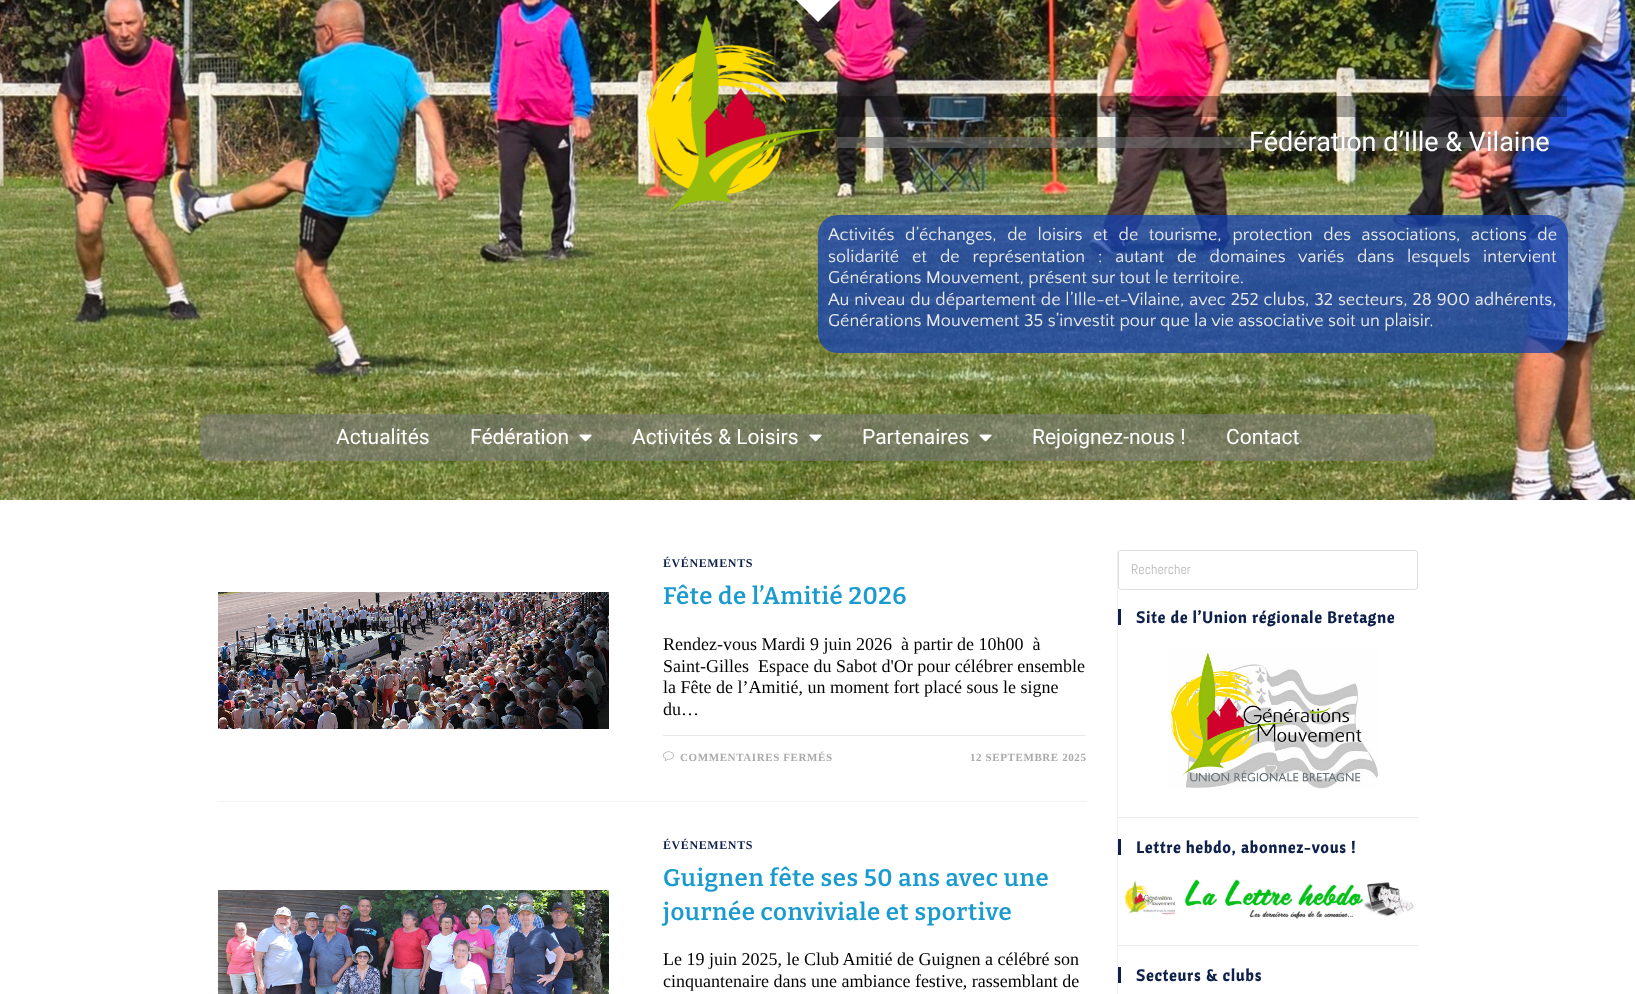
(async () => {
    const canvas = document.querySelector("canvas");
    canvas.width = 1635;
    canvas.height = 994;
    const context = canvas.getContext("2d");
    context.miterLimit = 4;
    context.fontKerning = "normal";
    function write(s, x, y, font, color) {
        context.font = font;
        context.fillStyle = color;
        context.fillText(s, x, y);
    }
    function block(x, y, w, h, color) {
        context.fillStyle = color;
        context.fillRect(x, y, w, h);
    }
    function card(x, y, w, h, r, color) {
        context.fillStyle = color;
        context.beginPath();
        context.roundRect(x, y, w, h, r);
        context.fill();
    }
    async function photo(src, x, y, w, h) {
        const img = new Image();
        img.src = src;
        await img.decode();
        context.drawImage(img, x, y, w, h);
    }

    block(0, 0, 1635, 994, "rgb(255, 255, 255)");
    await photo("media/1.png", 0, 0, 1635, 500);
    context.beginPath();
    context.moveTo(818, 22);
    context.lineTo(795, -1);
    context.lineTo(841, -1);
    context.closePath();
    context.fill();
    await photo("media/2.png", 646, 15, 191, 200);
    block(837, 96, 730, 21, "rgba(5, 5, 5, 0.35)");
    block(837, 137, 712, 11, "rgba(114, 114, 114, 0.54)");
    write("Fédération d’Ille & Vilaine", 1249, 151, "27px Roboto", "rgb(255, 255, 255)");
    card(818, 215, 750, 138, 20, "rgba(22, 66, 177, 0.77)");
    context.wordSpacing = "6.25px";
    write("Activités d’échanges, de loisirs et de tourisme, protection des associations, actions de", 828, 240, "18px Quattrocento Sans", "rgb(235, 235, 235)");
    context.wordSpacing = "8.5px";
    write("solidarité et de représentation : autant de domaines variés dans lesquels intervient", 828, 262, "18px Quattrocento Sans", "rgb(235, 235, 235)");
    context.wordSpacing = "0px";
    write("Générations Mouvement, présent sur tout le territoire.", 828, 283, "18px Quattrocento Sans", "rgb(235, 235, 235)");
    context.wordSpacing = "0.5px";
    write("Au niveau du département de l’Ille-et-Vilaine, avec 252 clubs, 32 secteurs, 28 900 adhérents,", 828, 305, "18px Quattrocento Sans", "rgb(235, 235, 235)");
    context.wordSpacing = "0px";
    write("Générations Mouvement 35 s’investit pour que la vie associative soit un plaisir.", 828, 326, "18px Quattrocento Sans", "rgb(235, 235, 235)");
    card(200, 414, 1235, 47, 12, "rgba(122, 122, 122, 0.6)");
    write("Actualités", 336, 444, "21px Roboto", "rgb(255, 255, 255)");
    write("Fédération", 470, 444, "21px Roboto", "rgb(255, 255, 255)");
    await photo("media/3.png", 579, 434, 13, 8);
    write("Activités & Loisirs", 632, 444, "21px Roboto", "rgb(255, 255, 255)");
    await photo("media/4.png", 809, 434, 13, 8);
    write("Partenaires", 862, 444, "21px Roboto", "rgb(255, 255, 255)");
    await photo("media/5.png", 979, 434, 13, 8);
    write("Rejoignez-nous !", 1032, 444, "21px Roboto", "rgb(255, 255, 255)");
    write("Contact", 1226, 444, "21px Roboto", "rgb(255, 255, 255)");
    block(1117, 550, 1, 444, "rgb(241, 241, 241)");
    block(218, 801, 869, 1, "rgb(241, 241, 241)");
    await photo("media/6.png", 218, 592, 391, 137);
    context.letterSpacing = "0.6px";
    write("ÉVÉNEMENTS", 663, 567, "bold 12px Liberation Serif", "rgb(15, 32, 75)");
    write("Fête de l’Amitié 2026", 663, 604, "600 24px Bitter", "rgb(26, 155, 207)");
    context.letterSpacing = "0px";
    write("Rendez-vous Mardi 9 juin 2026  à partir de 10h00  à", 663, 650, "18px Liberation Serif", "rgb(2, 1, 1)");
    write("Saint-Gilles  Espace du Sabot d'Or pour célébrer ensemble", 663, 672, "18px Liberation Serif", "rgb(2, 1, 1)");
    write("la Fête de l’Amitié, un moment fort placé sous le signe", 663, 693, "18px Liberation Serif", "rgb(2, 1, 1)");
    write("du…", 663, 715, "18px Liberation Serif", "rgb(2, 1, 1)");
    block(663, 735, 423, 1, "rgb(233, 233, 233)");
    await photo("media/7.png", 663, 751, 11, 10);
    context.letterSpacing = "0.6px";
    write("COMMENTAIRES FERMÉS", 680, 761, "bold 11px Liberation Serif", "rgb(171, 171, 171)");
    write("12 SEPTEMBRE 2025", 970, 761, "bold 11px Liberation Serif", "rgb(171, 171, 171)");
    await photo("media/8.png", 218, 890, 391, 104);
    write("ÉVÉNEMENTS", 663, 849, "bold 12px Liberation Serif", "rgb(15, 32, 75)");
    write("Guignen fête ses 50 ans avec une", 663, 886, "600 24px Bitter", "rgb(26, 155, 207)");
    write("journée conviviale et sportive", 663, 920, "600 24px Bitter", "rgb(26, 155, 207)");
    context.letterSpacing = "0px";
    write("Le 19 juin 2025, le Club Amitié de Guignen a célébré son", 663, 965, "18px Liberation Serif", "rgb(2, 1, 1)");
    write("cinquantenaire dans une ambiance festive, rassemblant de", 663, 987, "18px Liberation Serif", "rgb(2, 1, 1)");
    context.beginPath();
    context.roundRect(1118.5, 550.5, 299, 39, 2.5);
    context.strokeStyle = "rgb(221, 221, 221)";
    context.stroke();
    write("Rechercher", 1131, 574, "14px Abel", "rgb(186, 186, 186)");
    block(1118, 609, 3, 16, "rgb(15, 32, 75)");
    context.letterSpacing = "1px";
    write("Site de l’Union régionale Bretagne", 1136, 623, "bold 16px Cantora One", "rgb(15, 32, 75)");
    await photo("media/9.png", 1168, 649, 210, 141);
    block(1118, 817, 300, 1, "rgb(233, 233, 233)");
    block(1118, 839, 3, 16, "rgb(15, 32, 75)");
    write("Lettre hebdo, abonnez-vous !", 1136, 853, "bold 16px Cantora One", "rgb(15, 32, 75)");
    await photo("media/10.png", 1124, 879, 291, 40);
    block(1118, 945, 300, 1, "rgb(233, 233, 233)");
    block(1118, 967, 3, 16, "rgb(15, 32, 75)");
    write("Secteurs & clubs", 1136, 981, "bold 16px Cantora One", "rgb(15, 32, 75)");
})();
